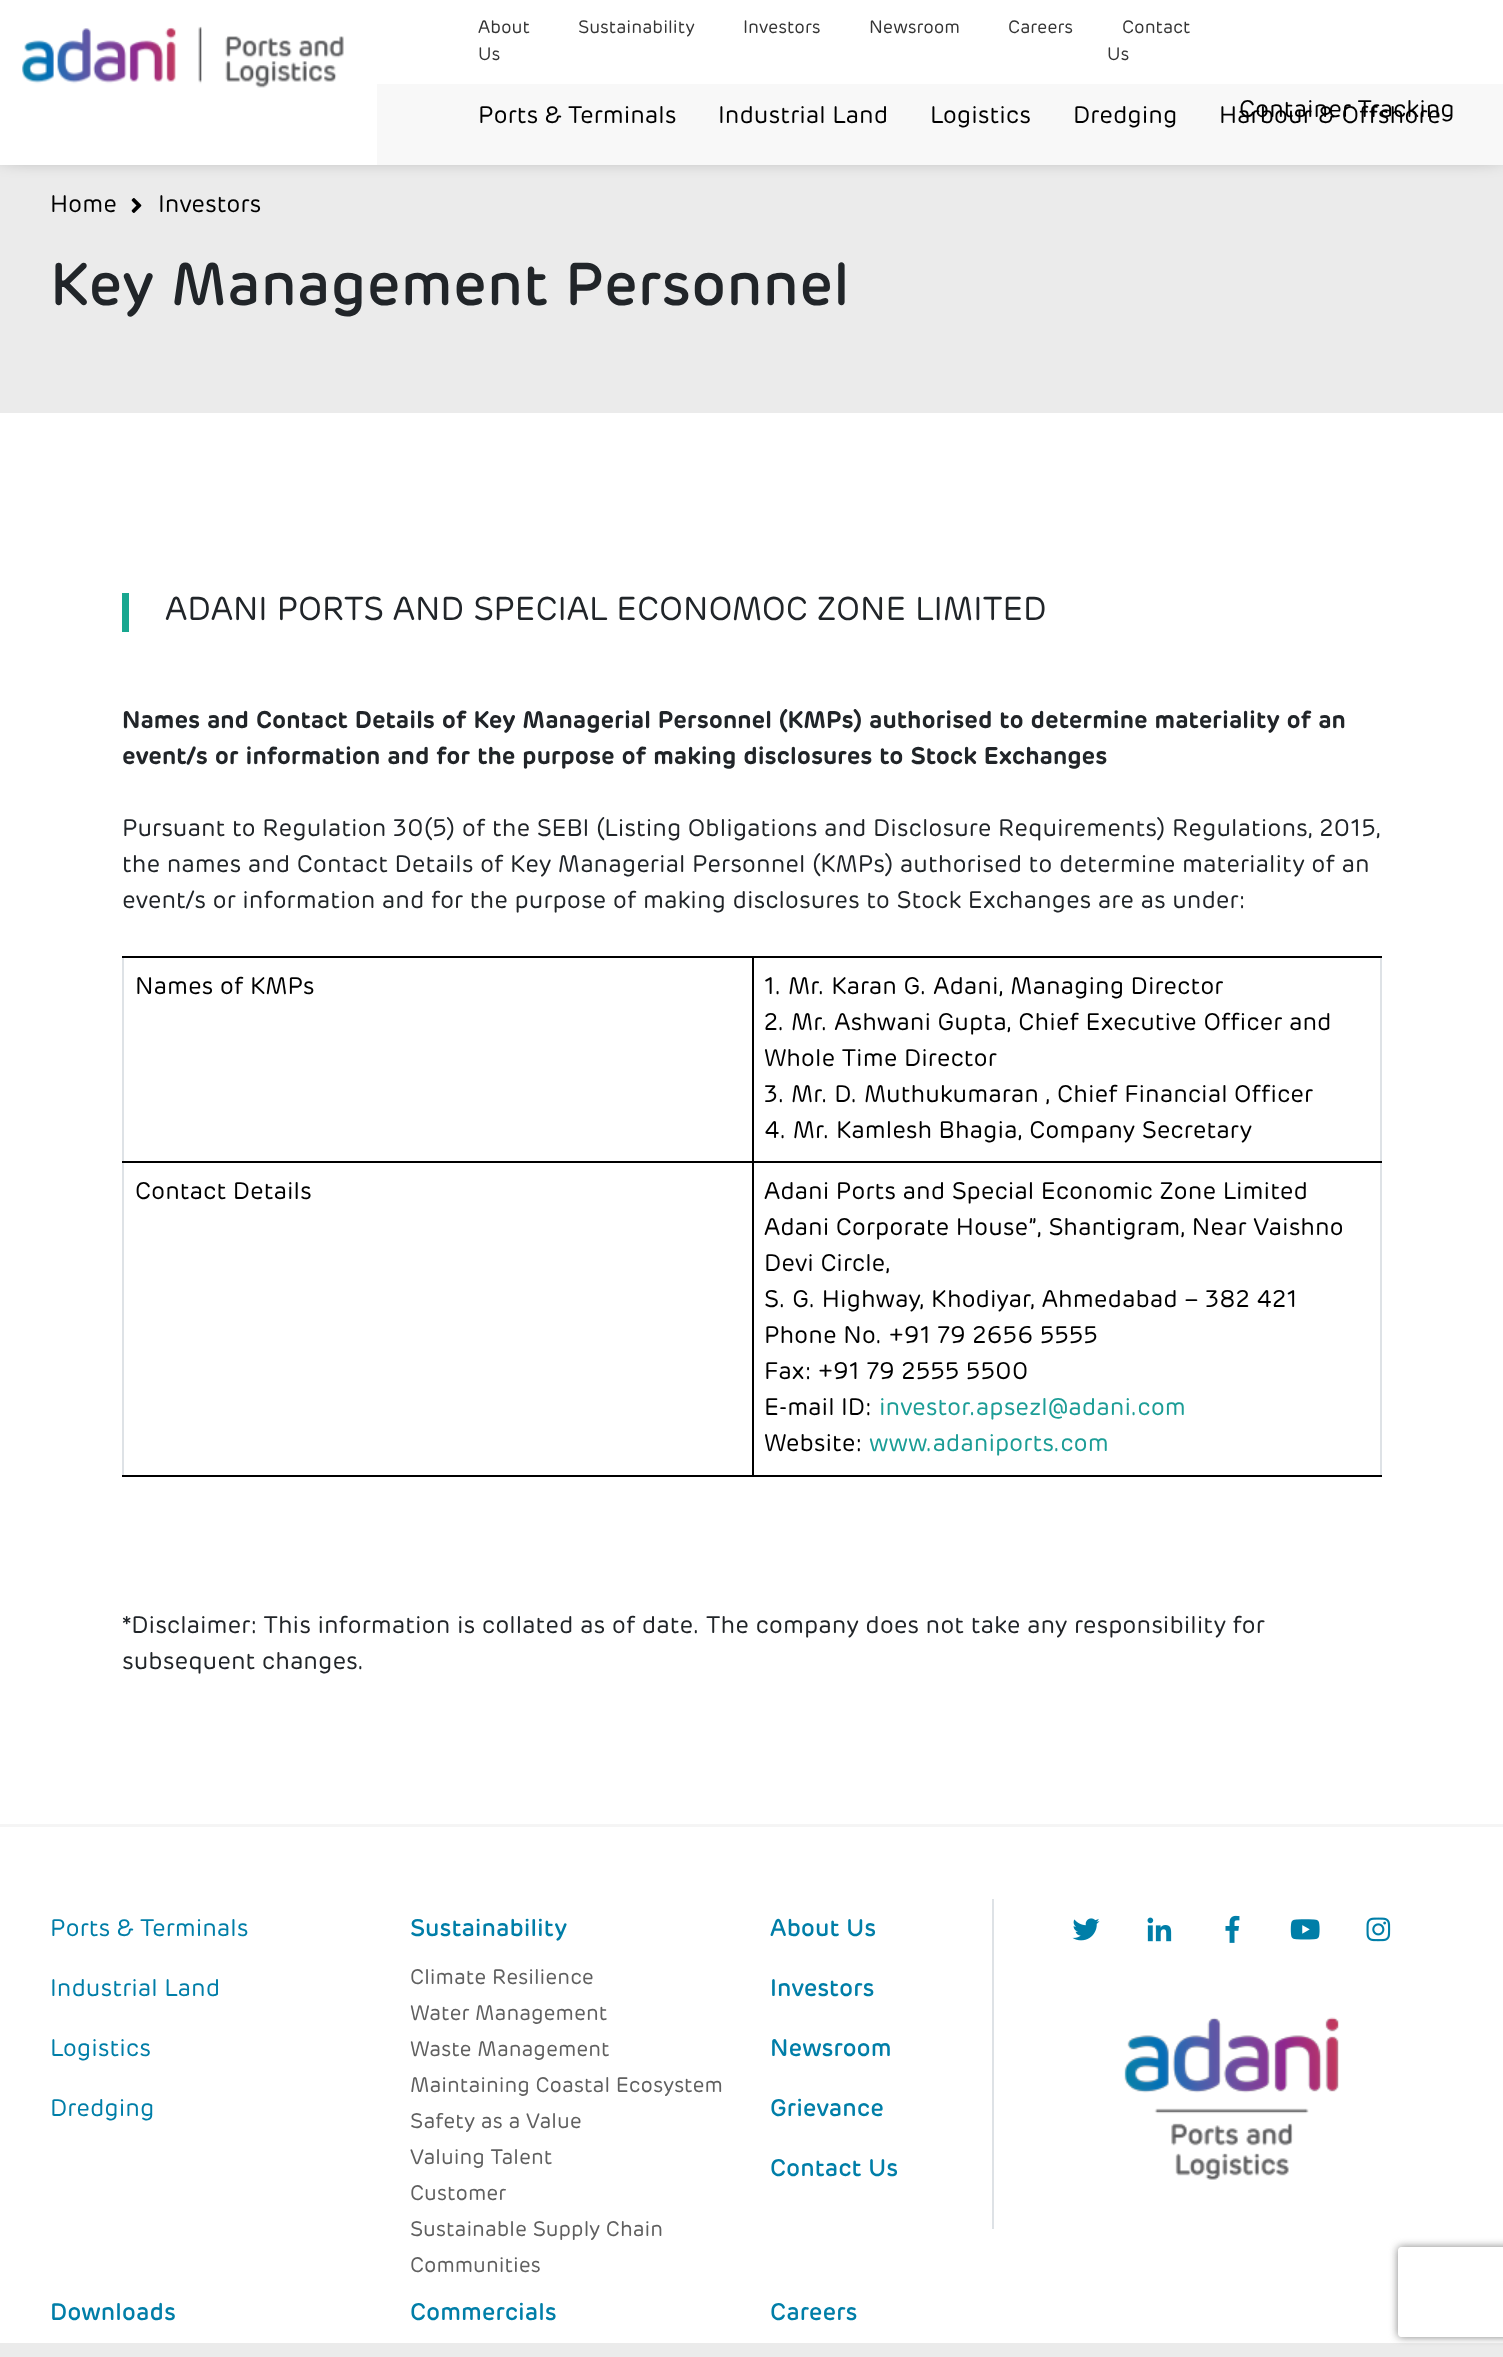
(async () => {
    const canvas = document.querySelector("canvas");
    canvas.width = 1503;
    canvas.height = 2357;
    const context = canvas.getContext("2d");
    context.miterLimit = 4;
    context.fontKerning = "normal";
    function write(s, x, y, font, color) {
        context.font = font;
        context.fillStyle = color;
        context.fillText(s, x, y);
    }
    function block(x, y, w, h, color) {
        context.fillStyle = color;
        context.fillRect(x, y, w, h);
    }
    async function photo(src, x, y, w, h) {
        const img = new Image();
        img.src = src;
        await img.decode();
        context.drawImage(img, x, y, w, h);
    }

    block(0, 0, 1503, 2357, "rgb(235, 235, 235)");
    block(0, 413, 1503, 1930, "rgb(255, 255, 255)");
    context.fillStyle = "rgb(0, 0, 0)";
    context.filter = "blur(12px)";
    context.beginPath();
    context.rect(3, -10, 1497, 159);
    context.fill();
    context.filter = "none";
    block(0, 0, 1503, 165, "rgb(255, 255, 255)");
    await photo("media/1.png", 22, 26, 322, 62);
    write("About", 478, 33, "18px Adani", "rgb(53, 53, 53)");
    write("Us", 478, 60, "18px Adani", "rgb(53, 53, 53)");
    write("Sustainability", 578, 33, "18px Adani", "rgb(53, 53, 53)");
    write("Investors", 743, 33, "18px Adani", "rgb(53, 53, 53)");
    write("Newsroom", 869, 33, "18px Adani", "rgb(53, 53, 53)");
    write("Careers", 1008, 33, "18px Adani", "rgb(53, 53, 53)");
    write("Contact", 1122, 33, "18px Adani", "rgb(53, 53, 53)");
    write("Us", 1107, 60, "18px Adani", "rgb(53, 53, 53)");
    block(377, 84, 1126, 81, "rgb(248, 248, 248)");
    write("Harbour & Offshore", 1219, 123, "24px Adani", "rgb(0, 0, 0)");
    write("Container Tracking", 1239, 117, "24px Adani", "rgb(0, 0, 0)");
    write("Ports & Terminals", 478, 123, "24px Adani", "rgb(0, 0, 0)");
    write("Industrial Land", 718, 123, "24px Adani", "rgb(0, 0, 0)");
    write("Logistics", 930, 123, "24px Adani", "rgb(0, 0, 0)");
    write("Dredging", 1073, 123, "24px Adani", "rgb(0, 0, 0)");
    write("Home", 50, 212, "24px Adani", "rgb(0, 0, 0)");
    await photo("media/2.png", 131, 198, 11, 15);
    write("Investors", 158, 212, "24px Adani", "rgb(0, 0, 0)");
    write("Key Management Personnel", 50, 305, "500 60px Adani", "rgb(33, 37, 41)");
    block(122, 593, 7, 39, "rgb(24, 167, 144)");
    write("ADANI PORTS AND SPECIAL ECONOMOC ZONE LIMITED", 165, 620, "33px Adani", "rgb(33, 37, 41)");
    write("Names and Contact Details of Key Managerial Personnel (KMPs) authorised to determine materiality of an", 122, 728, "600 24px Adani", "rgb(33, 37, 41)");
    write("event/s or information and for the purpose of making disclosures to Stock Exchanges", 122, 764, "600 24px Adani", "rgb(33, 37, 41)");
    write("Pursuant to Regulation 30(5) of the SEBI (Listing Obligations and Disclosure Requirements) Regulations, 2015,", 122, 836, "24px Adani", "rgb(33, 37, 41)");
    write("the names and Contact Details of Key Managerial Personnel (KMPs) authorised to determine materiality of an", 122, 872, "24px Adani", "rgb(33, 37, 41)");
    write("event/s or information and for the purpose of making disclosures to Stock Exchanges are as under:", 122, 908, "24px Adani", "rgb(33, 37, 41)");
    block(1380, 956, 2, 520, "rgb(222, 226, 230)");
    block(122, 956, 2, 520, "rgb(222, 226, 230)");
    block(122, 956, 1260, 2, "rgb(0, 0, 0)");
    write("Names of KMPs", 135, 994, "24px Adani", "rgb(0, 0, 0)");
    write("1. Mr. Karan G. Adani, Managing Director", 764, 994, "24px Adani", "rgb(0, 0, 0)");
    write("2. Mr. Ashwani Gupta, Chief Executive Officer and", 764, 1030, "24px Adani", "rgb(0, 0, 0)");
    write("Whole Time Director", 764, 1066, "24px Adani", "rgb(0, 0, 0)");
    write("3. Mr. D. Muthukumaran , Chief Financial Officer", 764, 1102, "24px Adani", "rgb(0, 0, 0)");
    write("4. Mr. Kamlesh Bhagia, Company Secretary", 764, 1138, "24px Adani", "rgb(0, 0, 0)");
    block(122, 1161, 1260, 2, "rgb(0, 0, 0)");
    block(122, 1475, 1260, 2, "rgb(0, 0, 0)");
    block(752, 956, 2, 520, "rgb(0, 0, 0)");
    write("Contact Details", 135, 1199, "24px Adani", "rgb(0, 0, 0)");
    write("Adani Ports and Special Economic Zone Limited", 764, 1199, "24px Adani", "rgb(0, 0, 0)");
    write("Adani Corporate House”, Shantigram, Near Vaishno", 764, 1235, "24px Adani", "rgb(0, 0, 0)");
    write("Devi Circle,", 764, 1271, "24px Adani", "rgb(0, 0, 0)");
    write("S. G. Highway, Khodiyar, Ahmedabad – 382 421", 764, 1307, "24px Adani", "rgb(0, 0, 0)");
    write("Phone No. +91 79 2656 5555", 764, 1343, "24px Adani", "rgb(0, 0, 0)");
    write("Fax: +91 79 2555 5500", 764, 1379, "24px Adani", "rgb(0, 0, 0)");
    write("E-mail ID:", 764, 1415, "24px Adani", "rgb(0, 0, 0)");
    write("investor.apsezl@adani.com", 879, 1415, "24px Adani", "rgb(28, 157, 150)");
    write("Website:", 764, 1451, "24px Adani", "rgb(0, 0, 0)");
    write("www.adaniports.com", 869, 1451, "24px Adani", "rgb(28, 157, 150)");
    write("*Disclaimer: This information is collated as of date. The company does not take any responsibility for", 122, 1633, "24px Adani", "rgb(33, 37, 41)");
    write("subsequent changes.", 122, 1669, "24px Adani", "rgb(33, 37, 41)");
    block(0, 1824, 1503, 3, "rgb(245, 245, 245)");
    write("Ports & Terminals", 50, 1936, "24px Adani", "rgb(0, 126, 168)");
    write("Industrial Land", 50, 1996, "24px Adani", "rgb(0, 126, 168)");
    write("Logistics", 50, 2056, "24px Adani", "rgb(0, 126, 168)");
    write("Dredging", 50, 2116, "24px Adani", "rgb(0, 126, 168)");
    write("Sustainability", 410, 1936, "500 24px Adani", "rgb(0, 126, 168)");
    write("Climate Resilience", 410, 1984, "21px Adani", "rgb(96, 96, 96)");
    write("Water Management", 410, 2020, "21px Adani", "rgb(96, 96, 96)");
    write("Waste Management", 410, 2056, "21px Adani", "rgb(96, 96, 96)");
    write("Maintaining Coastal Ecosystem", 410, 2092, "21px Adani", "rgb(96, 96, 96)");
    write("Safety as a Value", 410, 2128, "21px Adani", "rgb(96, 96, 96)");
    write("Valuing Talent", 410, 2164, "21px Adani", "rgb(96, 96, 96)");
    write("Customer", 410, 2200, "21px Adani", "rgb(96, 96, 96)");
    write("Sustainable Supply Chain", 410, 2236, "21px Adani", "rgb(96, 96, 96)");
    write("Communities", 410, 2272, "21px Adani", "rgb(96, 96, 96)");
    write("About Us", 770, 1936, "500 24px Adani", "rgb(0, 126, 168)");
    write("Investors", 770, 1996, "500 24px Adani", "rgb(0, 126, 168)");
    write("Newsroom", 770, 2056, "500 24px Adani", "rgb(0, 126, 168)");
    write("Grievance", 770, 2116, "500 24px Adani", "rgb(0, 126, 168)");
    write("Contact Us", 770, 2176, "500 24px Adani", "rgb(0, 126, 168)");
    block(992, 1899, 2, 330, "rgb(222, 226, 230)");
    await photo("media/3.png", 1072, 1918, 28, 23);
    await photo("media/4.png", 1147, 1917, 25, 25);
    await photo("media/5.png", 1225, 1915, 15, 28);
    await photo("media/6.png", 1290, 1919, 30, 21);
    await photo("media/7.png", 1366, 1917, 25, 25);
    await photo("media/8.png", 1124, 2017, 215, 163);
    write("Downloads", 50, 2320, "500 24px Adani", "rgb(0, 126, 168)");
    write("Commercials", 410, 2320, "500 24px Adani", "rgb(0, 126, 168)");
    write("Careers", 770, 2320, "500 24px Adani", "rgb(0, 126, 168)");
    context.save();
    context.beginPath();
    context.moveTo(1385, 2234);
    context.lineTo(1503, 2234);
    context.lineTo(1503, 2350);
    context.lineTo(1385, 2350);
    context.closePath();
    context.moveTo(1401, 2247);
    context.lineTo(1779, 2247);
    context.bezierCurveTo(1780.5, 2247, 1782, 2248.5, 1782, 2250);
    context.lineTo(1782, 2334);
    context.bezierCurveTo(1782, 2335.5, 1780.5, 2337, 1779, 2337);
    context.lineTo(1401, 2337);
    context.bezierCurveTo(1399.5, 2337, 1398, 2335.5, 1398, 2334);
    context.lineTo(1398, 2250);
    context.bezierCurveTo(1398, 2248.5, 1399.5, 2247, 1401, 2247);
    context.closePath();
    context.clip("evenodd");
    context.fillStyle = "rgb(128, 128, 128)";
    context.filter = "blur(4px)";
    context.beginPath();
    context.roundRect(1398, 2247, 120, 90, 3);
    context.fill();
    context.filter = "none";
    context.restore();
})();
